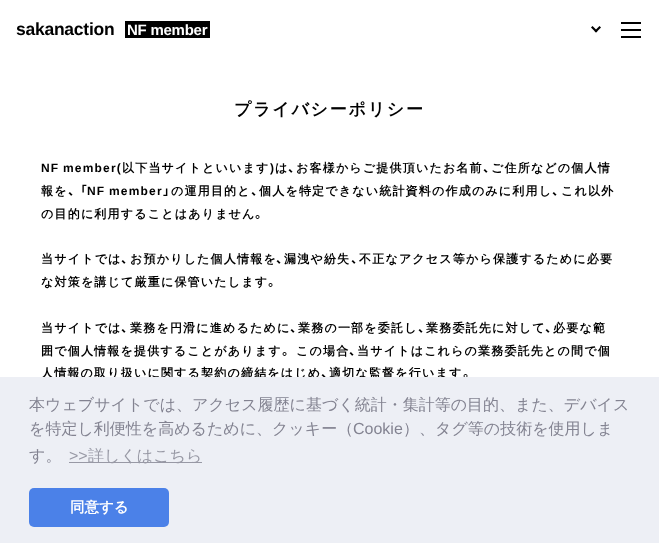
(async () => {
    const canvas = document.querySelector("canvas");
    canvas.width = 659;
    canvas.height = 543;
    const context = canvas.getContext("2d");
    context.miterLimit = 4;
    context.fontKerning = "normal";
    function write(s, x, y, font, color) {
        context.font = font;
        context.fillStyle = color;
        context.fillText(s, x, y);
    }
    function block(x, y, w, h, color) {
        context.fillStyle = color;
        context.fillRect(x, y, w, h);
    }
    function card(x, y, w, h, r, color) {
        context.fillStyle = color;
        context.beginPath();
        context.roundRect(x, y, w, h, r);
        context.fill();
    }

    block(0, 0, 659, 543, "rgb(255, 255, 255)");
    context.letterSpacing = "-0.25px";
    write("sakanaction", 16, 35, "bold 17.5px Liberation Sans", "rgb(0, 0, 0)");
    block(125, 21, 85, 17, "rgb(0, 0, 0)");
    write("NF member", 127, 35, "bold 15px Liberation Sans", "rgb(255, 255, 255)");
    block(621, 22, 20, 2, "rgb(0, 0, 0)");
    block(621, 29, 20, 2, "rgb(0, 0, 0)");
    block(621, 36, 20, 2, "rgb(0, 0, 0)");
    context.beginPath();
    context.moveTo(599.5, 26);
    context.lineTo(601, 27.5);
    context.lineTo(596, 32.5);
    context.lineTo(594.5, 31);
    context.closePath();
    context.fill();
    context.beginPath();
    context.moveTo(592.5, 26);
    context.lineTo(597.5, 31);
    context.lineTo(596, 32.5);
    context.lineTo(591, 27.5);
    context.closePath();
    context.fill();
    context.letterSpacing = "1.75px";
    write("プライバシーポリシー", 234, 115, "bold 17px WenQuanYi Zen Hei", "rgb(0, 0, 0)");
    context.letterSpacing = "1.2px";
    context.wordSpacing = "-1px";
    write("NF member(", 41, 172, "bold 12px Liberation Sans", "rgb(0, 0, 0)");
    context.wordSpacing = "0px";
    write("以下当サイトといいます", 122, 172, "bold 12px WenQuanYi Zen Hei", "rgb(0, 0, 0)");
    write(")", 270, 172, "bold 12px Liberation Sans", "rgb(0, 0, 0)");
    write("は", 275, 172, "bold 12px WenQuanYi Zen Hei", "rgb(0, 0, 0)");
    write("、", 288, 172, "bold 12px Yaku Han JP", "rgb(0, 0, 0)");
    write("お客様からご提供頂いたお名前", 296, 172, "bold 12px WenQuanYi Zen Hei", "rgb(0, 0, 0)");
    write("、", 483, 172, "bold 12px Yaku Han JP", "rgb(0, 0, 0)");
    write("ご住所などの個人情", 491, 172, "bold 12px WenQuanYi Zen Hei", "rgb(0, 0, 0)");
    write("報を", 41, 195, "bold 12px WenQuanYi Zen Hei", "rgb(0, 0, 0)");
    write("、 「", 68, 195, "bold 12px Yaku Han JP", "rgb(0, 0, 0)");
    context.wordSpacing = "-1px";
    write("NF member", 87, 195, "bold 12px Liberation Sans", "rgb(0, 0, 0)");
    context.wordSpacing = "0px";
    write("」", 163, 195, "bold 12px Yaku Han JP", "rgb(0, 0, 0)");
    write("の運用目的と", 171, 195, "bold 12px WenQuanYi Zen Hei", "rgb(0, 0, 0)");
    write("、", 251, 195, "bold 12px Yaku Han JP", "rgb(0, 0, 0)");
    write("個人を特定できない統計資料の作成のみに利用し", 259, 195, "bold 12px WenQuanYi Zen Hei", "rgb(0, 0, 0)");
    write("、", 552, 195, "bold 12px Yaku Han JP", "rgb(0, 0, 0)");
    write("これ以外", 561, 195, "bold 12px WenQuanYi Zen Hei", "rgb(0, 0, 0)");
    write("の目的に利用することはありません", 41, 218, "bold 12px WenQuanYi Zen Hei", "rgb(0, 0, 0)");
    write("。", 255, 218, "bold 12px Yaku Han JP", "rgb(0, 0, 0)");
    write("当サイトでは", 41, 263, "bold 12px WenQuanYi Zen Hei", "rgb(0, 0, 0)");
    write("、", 121, 263, "bold 12px Yaku Han JP", "rgb(0, 0, 0)");
    write("お預かりした個人情報を", 130, 263, "bold 12px WenQuanYi Zen Hei", "rgb(0, 0, 0)");
    write("、", 276, 263, "bold 12px Yaku Han JP", "rgb(0, 0, 0)");
    write("漏洩や紛失", 284, 263, "bold 12px WenQuanYi Zen Hei", "rgb(0, 0, 0)");
    write("、", 351, 263, "bold 12px Yaku Han JP", "rgb(0, 0, 0)");
    write("不正なアクセス等から保護するために必要", 359, 263, "bold 12px WenQuanYi Zen Hei", "rgb(0, 0, 0)");
    write("な対策を講じて厳重に保管いたします", 41, 286, "bold 12px WenQuanYi Zen Hei", "rgb(0, 0, 0)");
    write("。", 268, 286, "bold 12px Yaku Han JP", "rgb(0, 0, 0)");
    write("当サイトでは", 41, 332, "bold 12px WenQuanYi Zen Hei", "rgb(0, 0, 0)");
    write("、", 121, 332, "bold 12px Yaku Han JP", "rgb(0, 0, 0)");
    write("業務を円滑に進めるために", 130, 332, "bold 12px WenQuanYi Zen Hei", "rgb(0, 0, 0)");
    write("、", 290, 332, "bold 12px Yaku Han JP", "rgb(0, 0, 0)");
    write("業務の一部を委託し", 298, 332, "bold 12px WenQuanYi Zen Hei", "rgb(0, 0, 0)");
    write("、", 418, 332, "bold 12px Yaku Han JP", "rgb(0, 0, 0)");
    write("業務委託先に対して", 426, 332, "bold 12px WenQuanYi Zen Hei", "rgb(0, 0, 0)");
    write("、", 545, 332, "bold 12px Yaku Han JP", "rgb(0, 0, 0)");
    write("必要な範", 553, 332, "bold 12px WenQuanYi Zen Hei", "rgb(0, 0, 0)");
    write("囲で個人情報を提供することがあります", 41, 355, "bold 12px WenQuanYi Zen Hei", "rgb(0, 0, 0)");
    write("。", 282, 355, "bold 12px Yaku Han JP", "rgb(0, 0, 0)");
    write("この場合", 296, 355, "bold 12px WenQuanYi Zen Hei", "rgb(0, 0, 0)");
    write("、", 349, 355, "bold 12px Yaku Han JP", "rgb(0, 0, 0)");
    write("当サイトはこれらの業務委託先との間で個", 357, 355, "bold 12px WenQuanYi Zen Hei", "rgb(0, 0, 0)");
    write("人情報の取り扱いに関する契約の締結をはじめ", 41, 377, "bold 12px WenQuanYi Zen Hei", "rgb(0, 0, 0)");
    write("、", 321, 377, "bold 12px Yaku Han JP", "rgb(0, 0, 0)");
    write("適切な監督を行います", 329, 377, "bold 12px WenQuanYi Zen Hei", "rgb(0, 0, 0)");
    write("。", 463, 377, "bold 12px Yaku Han JP", "rgb(0, 0, 0)");
    block(0, 377, 659, 166, "rgb(237, 239, 245)");
    context.letterSpacing = "0px";
    write("本ウェブサイトでは、アクセス履歴に基づく統計・集計等の目的、また、デバイス", 29, 410, "500 16px WenQuanYi Zen Hei", "rgb(131, 131, 145)");
    write("を特定し利便性を高めるために、クッキー（", 29, 434, "500 16px WenQuanYi Zen Hei", "rgb(131, 131, 145)");
    write("Cookie", 353, 434, "16px Liberation Sans", "rgb(131, 131, 145)");
    write("）、タグ等の技術を使用しま", 403, 434, "500 16px WenQuanYi Zen Hei", "rgb(131, 131, 145)");
    write("す。", 29, 461, "500 16px WenQuanYi Zen Hei", "rgb(131, 131, 145)");
    write(">>", 69, 461, "16px Liberation Sans", "rgb(152, 153, 165)");
    block(69, 462, 133, 1, "rgb(152, 153, 165)");
    write("詳しくはこちら", 88, 461, "500 16px WenQuanYi Zen Hei", "rgb(152, 153, 165)");
    card(29, 488, 140, 39, 5, "rgb(75, 129, 232)");
    write("同意する", 70, 512, "bold 14.5px WenQuanYi Zen Hei", "rgb(255, 255, 255)");
})();
